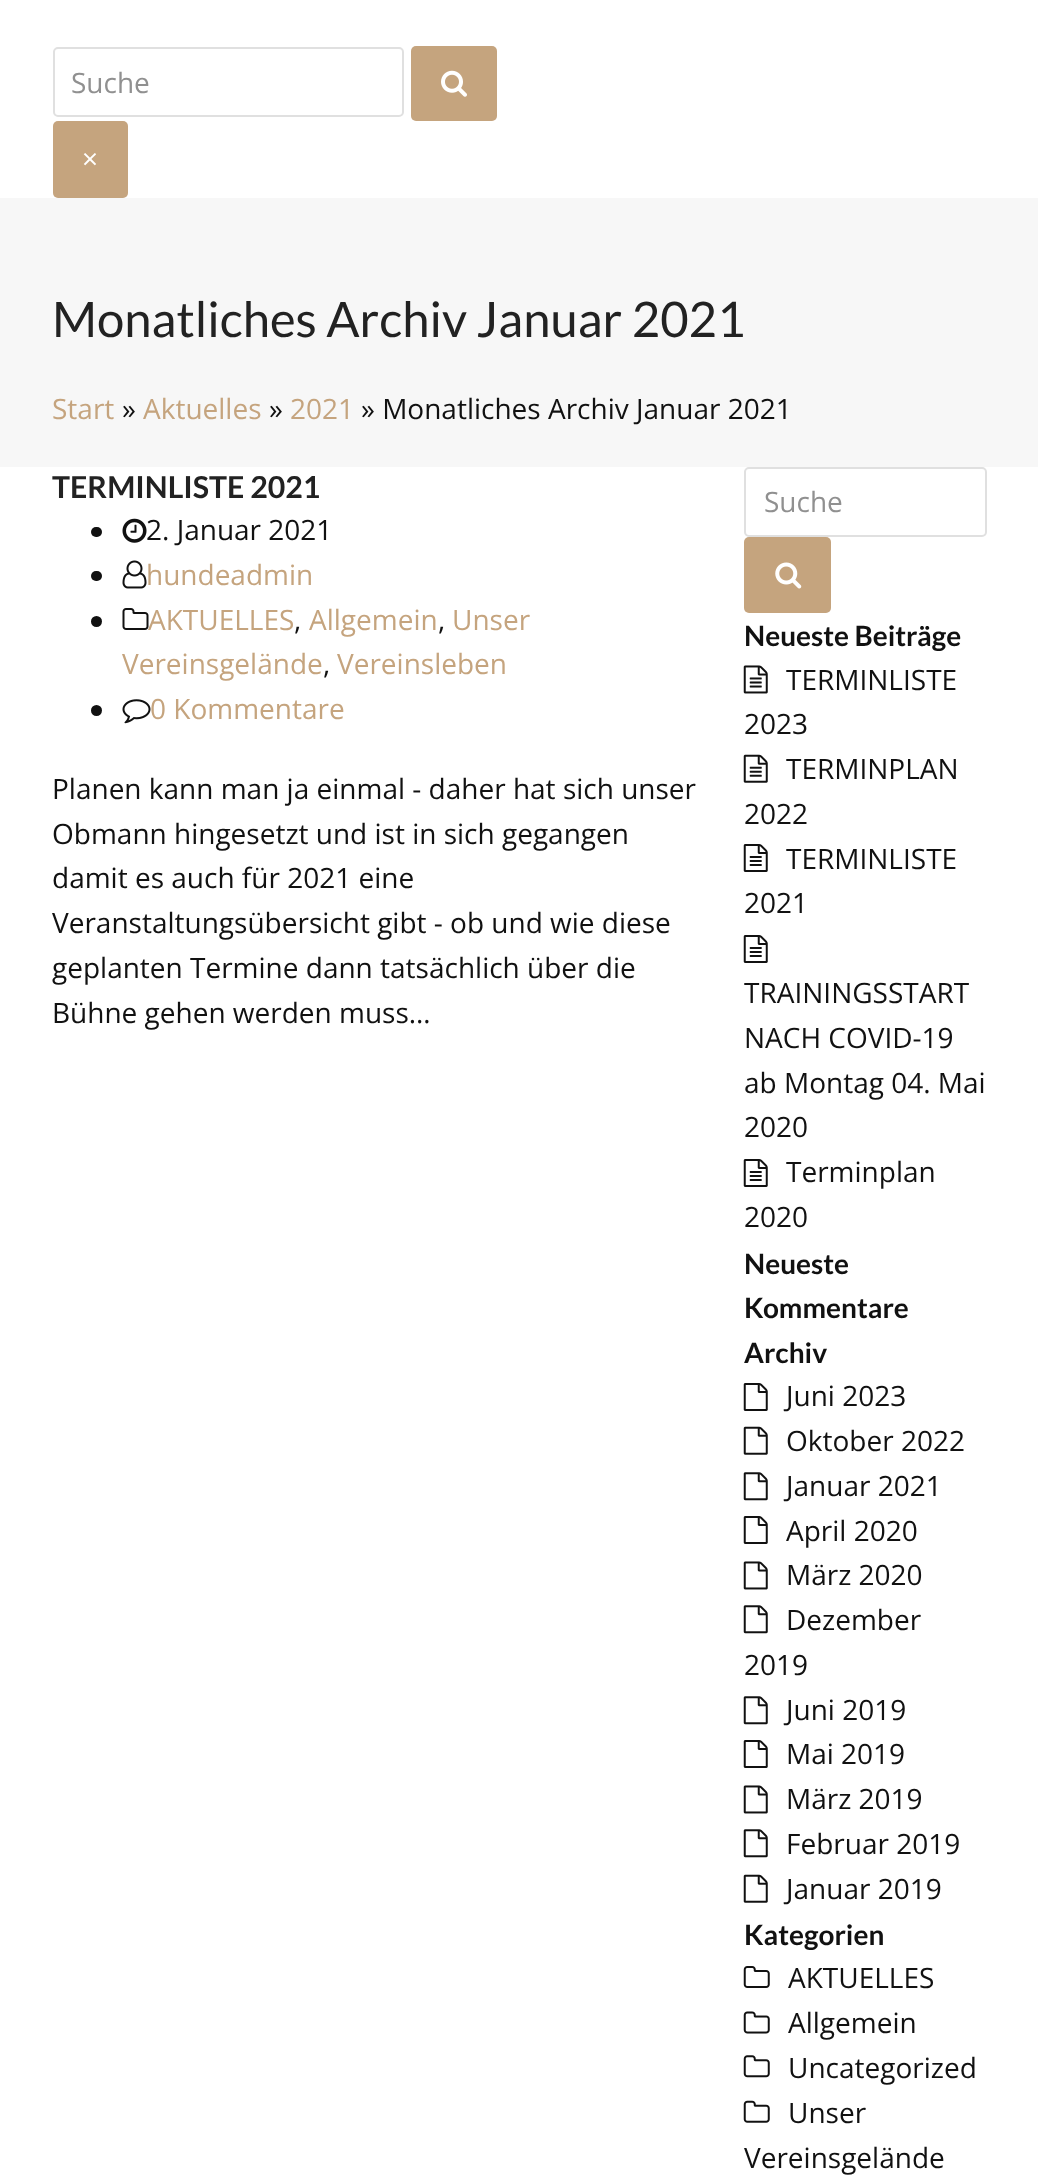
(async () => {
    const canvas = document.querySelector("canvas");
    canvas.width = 1038;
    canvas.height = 2177;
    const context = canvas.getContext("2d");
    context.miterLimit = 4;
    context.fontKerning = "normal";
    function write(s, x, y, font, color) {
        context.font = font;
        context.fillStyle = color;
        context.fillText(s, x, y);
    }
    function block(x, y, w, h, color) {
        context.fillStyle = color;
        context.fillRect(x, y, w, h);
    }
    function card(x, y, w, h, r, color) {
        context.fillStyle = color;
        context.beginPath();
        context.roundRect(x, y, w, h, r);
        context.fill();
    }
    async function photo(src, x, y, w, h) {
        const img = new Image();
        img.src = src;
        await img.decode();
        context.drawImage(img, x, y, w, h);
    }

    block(0, 0, 1038, 2177, "rgb(255, 255, 255)");
    context.beginPath();
    context.roundRect(54, 48, 349, 68, 4);
    context.strokeStyle = "rgb(224, 224, 224)";
    context.lineWidth = 2;
    context.stroke();
    write("Suche", 71, 93, "28px Open Sans", "rgb(144, 144, 144)");
    card(411, 46, 86, 75, 5, "rgb(197, 164, 126)");
    await photo("media/1.png", 441, 70, 26, 27);
    card(53, 121, 75, 77, 5, "rgb(197, 164, 126)");
    write("×", 82, 169, "28px Open Sans", "rgb(255, 255, 255)");
    block(0, 198, 1038, 269, "rgb(247, 247, 247)");
    write("Monatliches Archiv Januar 2021", 52, 337, "49px Lato", "rgb(34, 34, 34)");
    write("Start", 52, 419, "28px Open Sans", "rgb(197, 164, 126)");
    write("»", 122, 419, "28px Open Sans", "rgb(17, 17, 17)");
    write("Aktuelles", 143, 419, "28px Open Sans", "rgb(197, 164, 126)");
    write("»", 269, 419, "28px Open Sans", "rgb(17, 17, 17)");
    write("2021", 290, 419, "28px Open Sans", "rgb(197, 164, 126)");
    write("» Monatliches Archiv Januar 2021", 361, 419, "28px Open Sans", "rgb(17, 17, 17)");
    write("TERMINLISTE 2021", 52, 498, "bold 30.25px Lato", "rgb(34, 34, 34)");
    card(91, 527, 11, 10, 5, "rgb(17, 17, 17)");
    await photo("media/2.png", 122, 518, 25, 25);
    write("2. Januar 2021", 146, 540, "28px Open Sans", "rgb(17, 17, 17)");
    card(91, 571, 11, 10, 5, "rgb(17, 17, 17)");
    await photo("media/3.png", 122, 560, 25, 29);
    write("hundeadmin", 146, 585, "28px Open Sans", "rgb(197, 164, 126)");
    context.fillStyle = "rgb(17, 17, 17)";
    context.beginPath();
    context.arc(96.5, 621.5, 5.5, 0, Math.PI * 2);
    context.fill();
    await photo("media/4.png", 122, 608, 27, 22);
    write("AKTUELLES", 148, 630, "28px Open Sans", "rgb(197, 164, 126)");
    write("Allgemein", 309, 630, "28px Open Sans", "rgb(197, 164, 126)");
    write("Unser", 452, 630, "28px Open Sans", "rgb(197, 164, 126)");
    write(",", 294, 630, "28px Open Sans", "rgb(17, 17, 17)");
    write(",", 438, 630, "28px Open Sans", "rgb(17, 17, 17)");
    write("Vereinsgelände", 122, 674, "28px Open Sans", "rgb(197, 164, 126)");
    write(",", 323, 674, "28px Open Sans", "rgb(17, 17, 17)");
    write("Vereinsleben", 337, 674, "28px Open Sans", "rgb(197, 164, 126)");
    context.fillStyle = "rgb(17, 17, 17)";
    context.beginPath();
    context.arc(96.5, 710.5, 5.5, 0, Math.PI * 2);
    context.fill();
    await photo("media/5.png", 122, 699, 29, 25);
    write("0 Kommentare", 150, 719, "28px Open Sans", "rgb(197, 164, 126)");
    write("Planen kann man ja einmal - daher hat sich unser", 52, 799, "28px Open Sans", "rgb(17, 17, 17)");
    write("Obmann hingesetzt und ist in sich gegangen", 52, 844, "28px Open Sans", "rgb(17, 17, 17)");
    write("damit es auch für 2021 eine", 52, 888, "28px Open Sans", "rgb(17, 17, 17)");
    write("Veranstaltungsübersicht gibt - ob und wie diese", 52, 933, "28px Open Sans", "rgb(17, 17, 17)");
    write("geplanten Termine dann tatsächlich über die", 52, 978, "28px Open Sans", "rgb(17, 17, 17)");
    write("Bühne gehen werden muss…", 52, 1023, "28px Open Sans", "rgb(17, 17, 17)");
    context.beginPath();
    context.roundRect(745, 468, 241, 68, 4);
    context.stroke();
    write("Suche", 764, 512, "28px Open Sans", "rgb(144, 144, 144)");
    card(744, 537, 87, 76, 5, "rgb(197, 164, 126)");
    await photo("media/6.png", 775, 562, 27, 27);
    write("Neueste Beiträge", 744, 646, "bold 28px Lato", "rgb(17, 17, 17)");
    await photo("media/7.png", 743, 665, 25, 29);
    write("TERMINLISTE", 786, 690, "28px Open Sans", "rgb(17, 17, 17)");
    write("2023", 744, 734, "28px Open Sans", "rgb(17, 17, 17)");
    await photo("media/8.png", 743, 754, 25, 29);
    write("TERMINPLAN", 786, 779, "28px Open Sans", "rgb(17, 17, 17)");
    write("2022", 744, 824, "28px Open Sans", "rgb(17, 17, 17)");
    await photo("media/9.png", 743, 844, 25, 28);
    write("TERMINLISTE", 786, 869, "28px Open Sans", "rgb(17, 17, 17)");
    write("2021", 744, 913, "28px Open Sans", "rgb(17, 17, 17)");
    await photo("media/9.png", 743, 935, 25, 28);
    write("TRAININGSSTART", 744, 1003, "28px Open Sans", "rgb(17, 17, 17)");
    write("NACH COVID-19", 744, 1048, "28px Open Sans", "rgb(17, 17, 17)");
    write("ab Montag 04. Mai", 744, 1093, "28px Open Sans", "rgb(17, 17, 17)");
    write("2020", 744, 1137, "28px Open Sans", "rgb(17, 17, 17)");
    await photo("media/9.png", 743, 1159, 25, 28);
    write("Terminplan", 786, 1182, "28px Open Sans", "rgb(17, 17, 17)");
    write("2020", 744, 1227, "28px Open Sans", "rgb(17, 17, 17)");
    write("Neueste", 744, 1274, "bold 28px Lato", "rgb(17, 17, 17)");
    write("Kommentare", 744, 1318, "bold 28px Lato", "rgb(17, 17, 17)");
    write("Archiv", 744, 1363, "bold 28px Lato", "rgb(17, 17, 17)");
    await photo("media/10.png", 743, 1383, 25, 28);
    write("Juni 2023", 786, 1406, "28px Open Sans", "rgb(17, 17, 17)");
    await photo("media/11.png", 743, 1426, 25, 29);
    write("Oktober 2022", 786, 1451, "28px Open Sans", "rgb(17, 17, 17)");
    await photo("media/12.png", 743, 1472, 25, 29);
    write("Januar 2021", 786, 1496, "28px Open Sans", "rgb(17, 17, 17)");
    await photo("media/10.png", 743, 1516, 25, 28);
    write("April 2020", 786, 1541, "28px Open Sans", "rgb(17, 17, 17)");
    await photo("media/13.png", 743, 1561, 25, 29);
    write("März 2020", 786, 1585, "28px Open Sans", "rgb(17, 17, 17)");
    await photo("media/12.png", 743, 1605, 25, 29);
    write("Dezember", 786, 1630, "28px Open Sans", "rgb(17, 17, 17)");
    write("2019", 744, 1675, "28px Open Sans", "rgb(17, 17, 17)");
    await photo("media/12.png", 743, 1696, 25, 29);
    write("Juni 2019", 786, 1720, "28px Open Sans", "rgb(17, 17, 17)");
    await photo("media/10.png", 743, 1740, 25, 28);
    write("Mai 2019", 786, 1764, "28px Open Sans", "rgb(17, 17, 17)");
    await photo("media/13.png", 743, 1785, 25, 29);
    write("März 2019", 786, 1809, "28px Open Sans", "rgb(17, 17, 17)");
    await photo("media/12.png", 743, 1829, 25, 29);
    write("Februar 2019", 786, 1854, "28px Open Sans", "rgb(17, 17, 17)");
    await photo("media/11.png", 743, 1874, 25, 29);
    write("Januar 2019", 786, 1899, "28px Open Sans", "rgb(17, 17, 17)");
    write("Kategorien", 744, 1945, "bold 28px Lato", "rgb(17, 17, 17)");
    await photo("media/14.png", 743, 1966, 27, 22);
    write("AKTUELLES", 788, 1988, "28px Open Sans", "rgb(17, 17, 17)");
    await photo("media/15.png", 743, 2011, 27, 23);
    write("Allgemein", 788, 2033, "28px Open Sans", "rgb(17, 17, 17)");
    await photo("media/16.png", 743, 2055, 27, 23);
    write("Uncategorized", 788, 2078, "28px Open Sans", "rgb(17, 17, 17)");
    await photo("media/17.png", 743, 2100, 27, 23);
    write("Unser", 788, 2123, "28px Open Sans", "rgb(17, 17, 17)");
    write("Vereinsgelände", 744, 2168, "28px Open Sans", "rgb(17, 17, 17)");
})();
